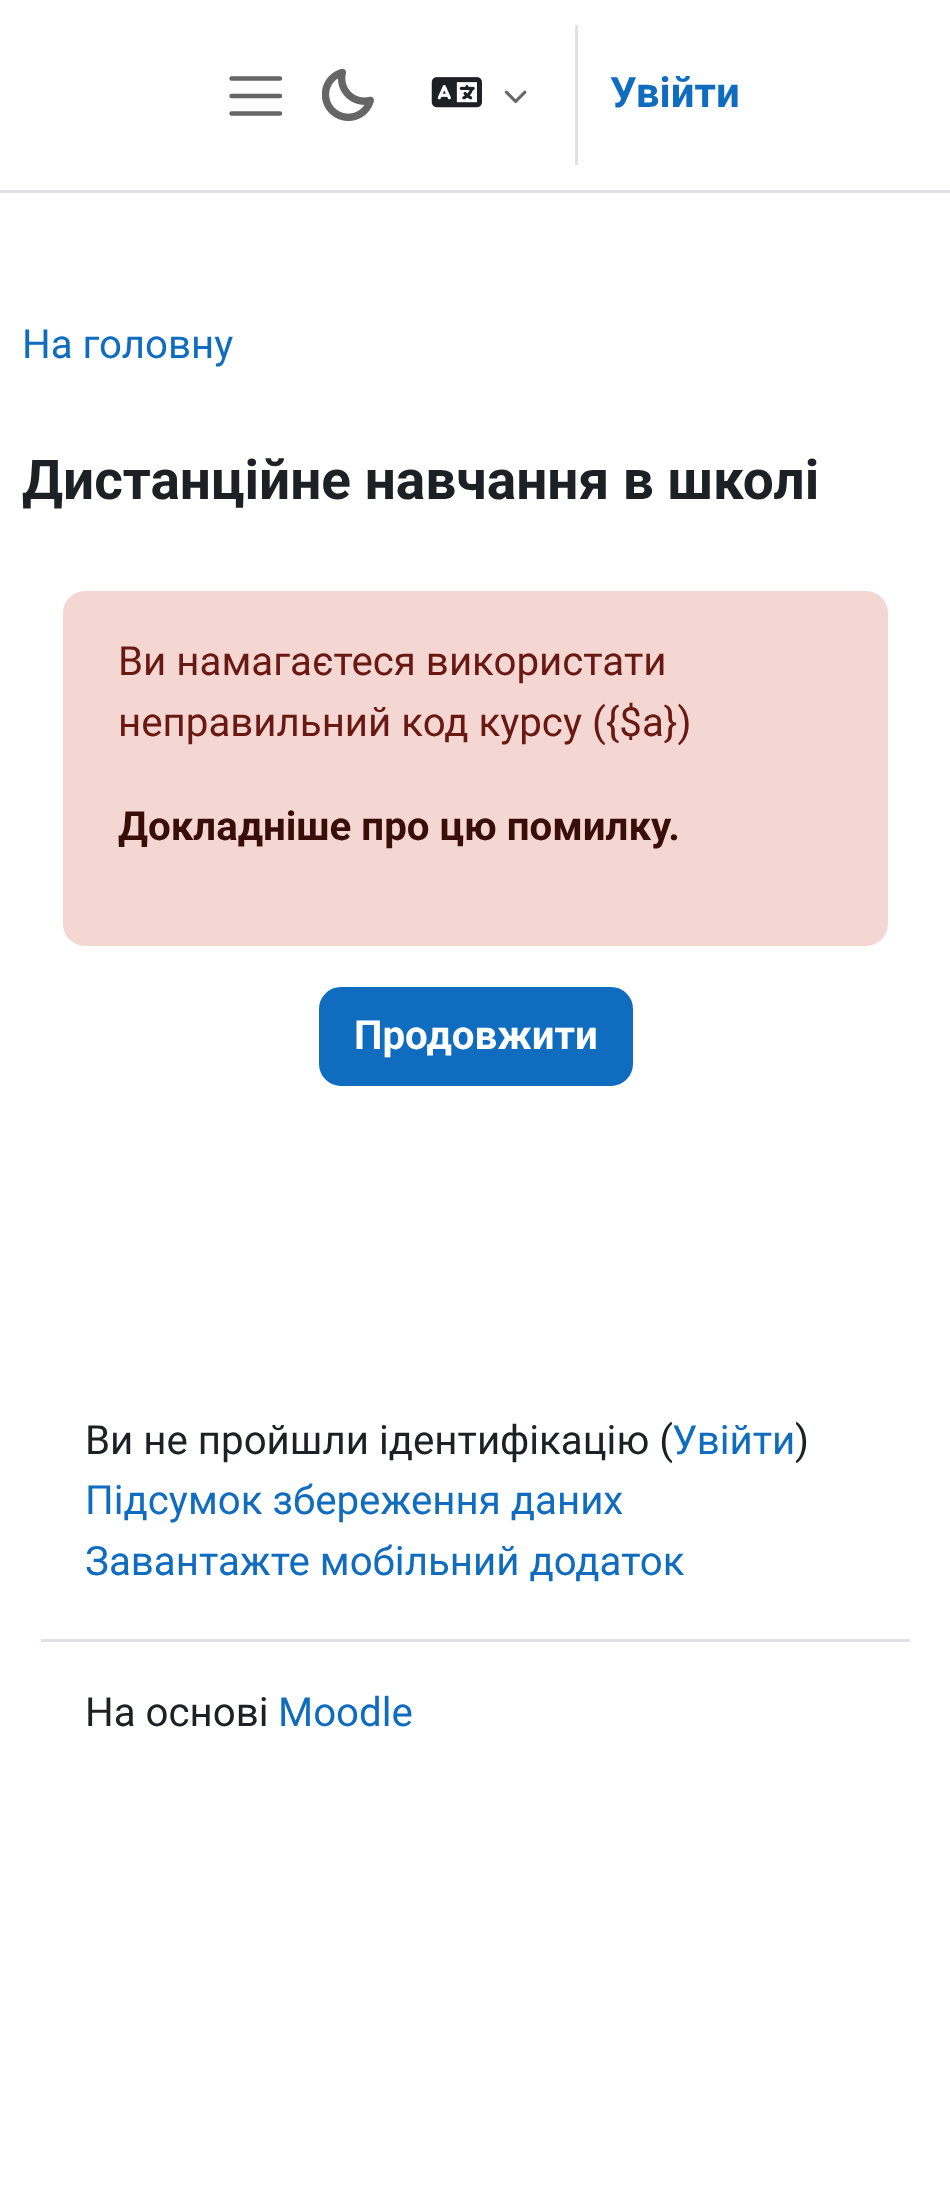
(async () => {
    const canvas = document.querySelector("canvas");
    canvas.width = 950;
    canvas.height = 2185;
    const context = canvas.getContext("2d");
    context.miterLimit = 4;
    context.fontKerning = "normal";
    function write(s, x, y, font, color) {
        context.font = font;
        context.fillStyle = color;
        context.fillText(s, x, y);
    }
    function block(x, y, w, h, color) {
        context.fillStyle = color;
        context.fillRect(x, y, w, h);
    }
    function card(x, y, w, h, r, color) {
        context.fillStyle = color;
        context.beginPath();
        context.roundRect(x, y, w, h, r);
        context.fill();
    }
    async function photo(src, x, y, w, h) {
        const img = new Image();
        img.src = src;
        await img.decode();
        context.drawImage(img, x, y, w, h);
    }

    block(0, 0, 950, 2185, "rgb(255, 255, 255)");
    block(0, 190, 950, 3, "rgb(222, 226, 230)");
    context.beginPath();
    context.moveTo(231.5, 78.5);
    context.lineTo(280, 78.5);
    context.moveTo(231.5, 96);
    context.lineTo(280, 96);
    context.moveTo(231.5, 113.5);
    context.lineTo(280, 113.5);
    context.strokeStyle = "rgb(102, 102, 102)";
    context.lineWidth = 4.4;
    context.lineCap = "round";
    context.stroke();
    await photo("media/1.png", 322, 69, 52, 52);
    await photo("media/2.png", 431, 77, 51, 31);
    await photo("media/3.png", 504, 90, 23, 13);
    block(575, 25, 3, 140, "rgb(222, 226, 230)");
    write("Увійти", 610, 107, "bold 42px Roboto", "rgb(15, 108, 191)");
    write("На головну", 22, 358, "40.25px Roboto", "rgb(15, 108, 191)");
    write("Дистанційне навчання в школі", 22, 499, "bold 55px Roboto", "rgb(29, 33, 37)");
    card(63, 591, 825, 355, 22, "rgb(244, 214, 210)");
    write("Ви намагаєтеся використати", 118, 675, "40.25px Roboto", "rgb(105, 25, 17)");
    write("неправильний код курсу ({$a})", 118, 736, "40.25px Roboto", "rgb(105, 25, 17)");
    write("Докладніше про цю помилку.", 118, 840, "bold 40.25px Roboto", "rgb(57, 14, 9)");
    context.fillStyle = "rgb(15, 108, 191)";
    context.beginPath();
    context.roundRect(320.5, 988.5, 311, 96, 20.5);
    context.fill();
    context.strokeStyle = "rgb(15, 108, 191)";
    context.lineWidth = 3;
    context.stroke();
    write("Продовжити", 354, 1049, "bold 40.25px Roboto", "rgb(255, 255, 255)");
    block(41, 1639, 869, 3, "rgb(222, 226, 230)");
    write("Ви не пройшли ідентифікацію (", 85, 1454, "40.25px Roboto", "rgb(29, 33, 37)");
    write("Увійти", 672, 1454, "40.25px Roboto", "rgb(15, 108, 191)");
    write(")", 795, 1454, "40.25px Roboto", "rgb(29, 33, 37)");
    write("Підсумок збереження даних", 85, 1514, "40.25px Roboto", "rgb(15, 108, 191)");
    write("Завантажте мобільний додаток", 85, 1575, "40.25px Roboto", "rgb(15, 108, 191)");
    write("На основі", 85, 1726, "40.25px Roboto", "rgb(29, 33, 37)");
    write("Moodle", 278, 1726, "40.25px Roboto", "rgb(15, 108, 191)");
})();
